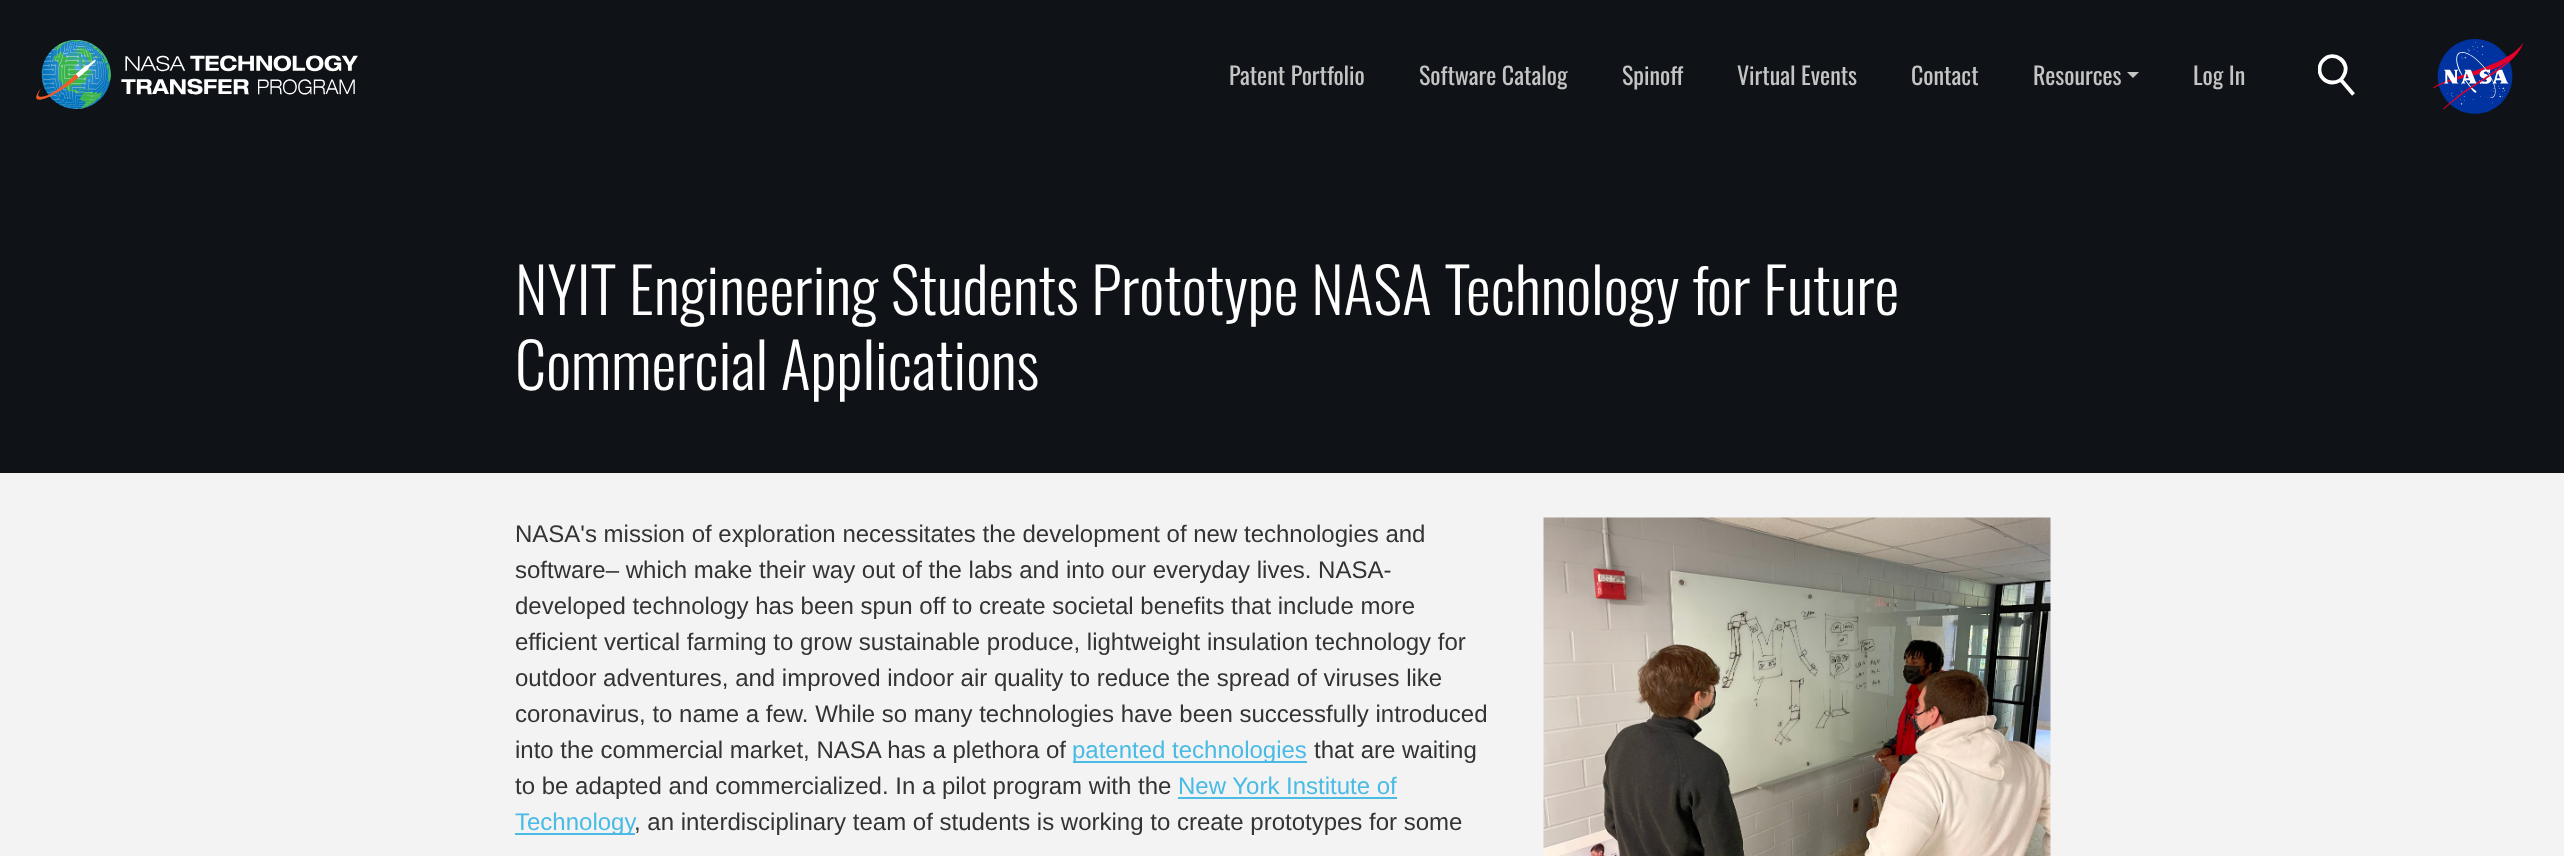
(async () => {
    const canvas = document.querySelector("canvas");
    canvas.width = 2564;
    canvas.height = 856;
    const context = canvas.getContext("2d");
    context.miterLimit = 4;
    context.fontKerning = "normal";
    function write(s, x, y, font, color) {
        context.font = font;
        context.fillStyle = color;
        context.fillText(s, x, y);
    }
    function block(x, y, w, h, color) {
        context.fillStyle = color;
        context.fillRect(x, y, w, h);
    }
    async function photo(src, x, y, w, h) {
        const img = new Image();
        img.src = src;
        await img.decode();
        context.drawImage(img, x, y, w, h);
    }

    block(0, 0, 2564, 856, "rgb(15, 18, 22)");
    await photo("media/1.png", 36, 40, 322, 69);
    write("Patent Portfolio", 1229, 85, "24px Oswald", "rgb(196, 196, 196)");
    write("Software Catalog", 1419, 85, "24px Oswald", "rgb(196, 196, 196)");
    write("Spinoff", 1622, 85, "24px Oswald", "rgb(196, 196, 196)");
    write("Virtual Events", 1737, 85, "24px Oswald", "rgb(196, 196, 196)");
    write("Contact", 1911, 85, "24px Oswald", "rgb(196, 196, 196)");
    write("Resources", 2033, 85, "24px Oswald", "rgb(196, 196, 196)");
    context.beginPath();
    context.moveTo(2127, 72);
    context.lineTo(2139, 72);
    context.lineTo(2133, 78);
    context.closePath();
    context.fill();
    write("Log In", 2193, 85, "24px Oswald", "rgb(196, 196, 196)");
    context.save();
    context.beginPath();
    context.rect(2318, 54, 37, 42);
    context.clip();
    context.beginPath();
    context.moveTo(2332.5, 82.5);
    context.bezierCurveTo(2337, 82.5, 2341.5, 80, 2343.5, 76);
    context.bezierCurveTo(2352, 62.5, 2333.5, 49, 2323, 60.5);
    context.bezierCurveTo(2320.5, 63, 2319.5, 66, 2319.5, 69.5);
    context.bezierCurveTo(2319.5, 76.5, 2325, 82.5, 2332.5, 82.5);
    context.closePath();
    context.moveTo(2341.5, 80.5);
    context.lineTo(2353.5, 94.5);
    context.strokeStyle = "rgb(255, 255, 255)";
    context.lineWidth = 3.8;
    context.stroke();
    context.restore();
    await photo("media/2.png", 2433, 39, 91, 75);
    write("NYIT Engineering Students Prototype NASA Technology for Future", 515, 315, "300 62.4px Oswald", "rgb(255, 255, 255)");
    write("Commercial Applications", 515, 390, "300 62.4px Oswald", "rgb(255, 255, 255)");
    block(0, 473, 2564, 383, "rgb(243, 243, 243)");
    write("NASA's mission of exploration necessitates the development of new technologies and", 515, 542, "24px Arimo", "rgb(51, 51, 51)");
    await photo("media/3.png", 1543, 517, 508, 339);
    write("software– which make their way out of the labs and into our everyday lives. NASA-", 515, 578, "24px Arimo", "rgb(51, 51, 51)");
    write("developed technology has been spun off to create societal benefits that include more", 515, 614, "24px Arimo", "rgb(51, 51, 51)");
    write("efficient vertical farming to grow sustainable produce, lightweight insulation technology for", 515, 650, "24px Arimo", "rgb(51, 51, 51)");
    write("outdoor adventures, and improved indoor air quality to reduce the spread of viruses like", 515, 686, "24px Arimo", "rgb(51, 51, 51)");
    write("coronavirus, to name a few. While so many technologies have been successfully introduced", 515, 722, "24px Arimo", "rgb(51, 51, 51)");
    write("into the commercial market, NASA has a plethora of", 515, 758, "24px Arimo", "rgb(51, 51, 51)");
    block(1073, 761, 234, 2, "rgb(73, 187, 229)");
    write("patented technologies", 1072, 758, "24px Arimo", "rgb(73, 187, 229)");
    write("that are waiting", 1314, 758, "24px Arimo", "rgb(51, 51, 51)");
    write("to be adapted and commercialized. In a pilot program with the", 515, 794, "24px Arimo", "rgb(51, 51, 51)");
    write("New York Institute of", 1178, 794, "24px Arimo", "rgb(73, 187, 229)");
    block(1178, 797, 219, 2, "rgb(73, 187, 229)");
    block(515, 833, 120, 2, "rgb(73, 187, 229)");
    write("Technology", 515, 830, "24px Arimo", "rgb(73, 187, 229)");
    write(", an interdisciplinary team of students is working to create prototypes for some", 634, 830, "24px Arimo", "rgb(51, 51, 51)");
})();
